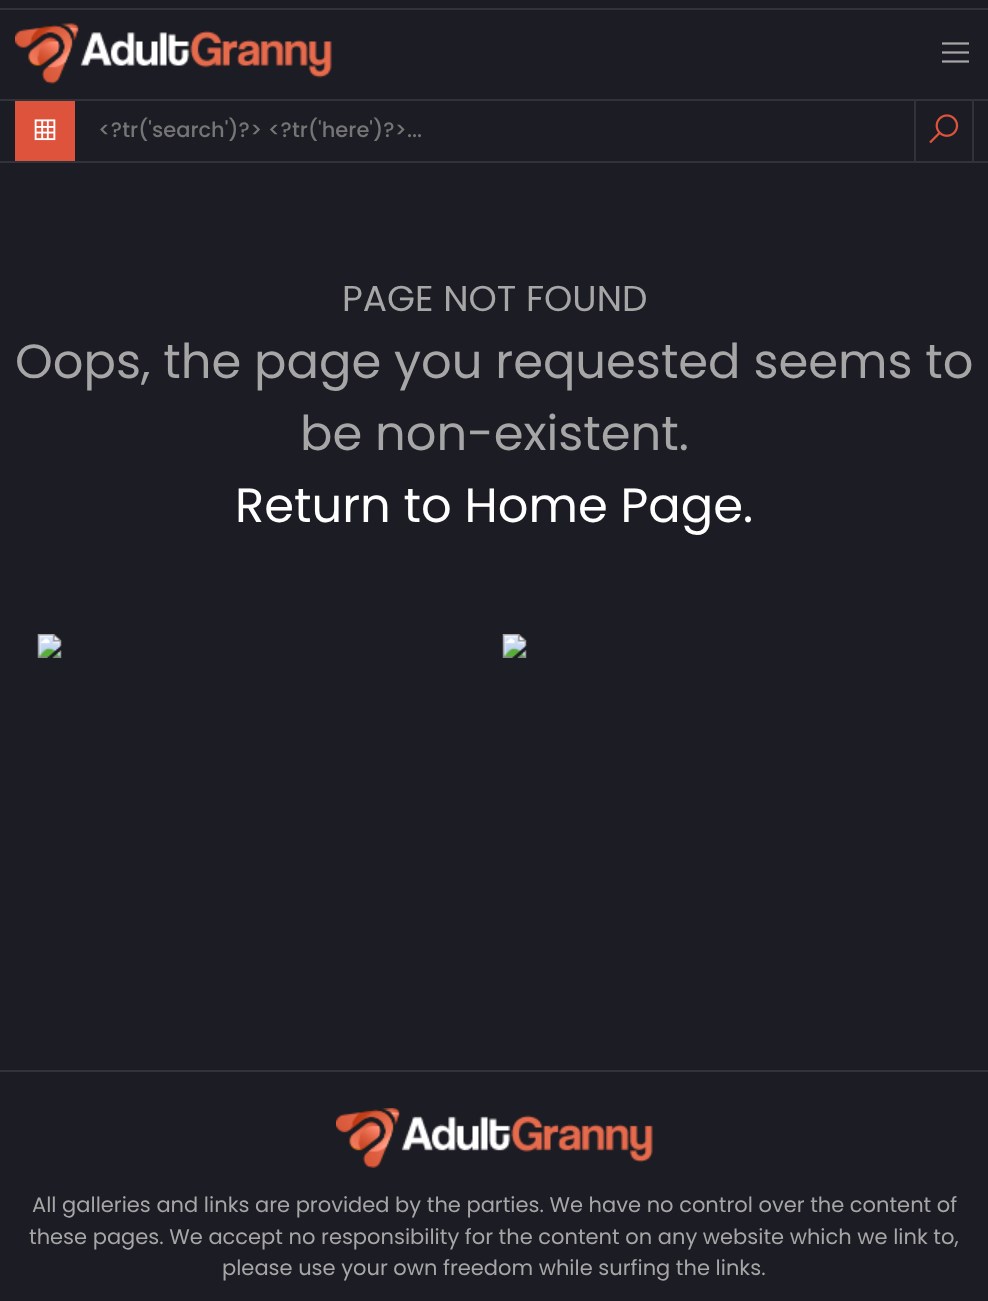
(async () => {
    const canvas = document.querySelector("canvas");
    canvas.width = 988;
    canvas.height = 1301;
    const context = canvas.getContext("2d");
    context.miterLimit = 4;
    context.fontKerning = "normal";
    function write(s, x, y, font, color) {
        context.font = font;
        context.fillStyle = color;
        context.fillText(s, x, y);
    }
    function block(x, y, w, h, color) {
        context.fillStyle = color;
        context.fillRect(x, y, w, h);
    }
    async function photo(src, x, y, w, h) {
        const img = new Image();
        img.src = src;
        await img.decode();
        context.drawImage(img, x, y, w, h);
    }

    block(0, 0, 988, 1301, "rgb(27, 28, 36)");
    block(0, 8, 988, 2, "rgb(50, 51, 58)");
    await photo("media/1.png", 15, 23, 317, 61);
    await photo("media/2.png", 942, 42, 27, 21);
    block(0, 99, 988, 2, "rgb(50, 51, 58)");
    block(0, 161, 988, 2, "rgb(50, 51, 58)");
    block(15, 101, 60, 60, "rgb(221, 83, 60)");
    await photo("media/3.png", 34, 119, 22, 22);
    write("<?tr('search')?> <?tr('here')?>...", 98, 137, "500 21px Poppins", "rgb(117, 117, 117)");
    block(972, 101, 2, 60, "rgb(50, 51, 58)");
    block(914, 101, 2, 60, "rgb(50, 51, 58)");
    await photo("media/4.png", 929, 114, 30, 30);
    write("PAGE NOT FOUND", 342, 311, "36px Poppins", "rgb(166, 166, 166)");
    write("Oops, the page you requested seems to", 15, 378, "48px Poppins", "rgb(166, 166, 166)");
    write("be non-existent.", 300, 450, "48px Poppins", "rgb(166, 166, 166)");
    write("Return to Home Page.", 235, 522, "48px Poppins", "rgb(255, 255, 255)");
    await photo("media/5.png", 37, 634, 25, 24);
    await photo("media/5.png", 502, 634, 25, 24);
    block(0, 1070, 988, 2, "rgb(50, 51, 58)");
    await photo("media/6.png", 336, 1108, 317, 60);
    write("All galleries and links are provided by the parties. We have no control over the content of", 32, 1212, "21px Poppins", "rgb(166, 166, 166)");
    write("these pages. We accept no responsibility for the content on any website which we link to,", 29, 1244, "21px Poppins", "rgb(166, 166, 166)");
    write("please use your own freedom while surfing the links.", 222, 1275, "21px Poppins", "rgb(166, 166, 166)");
})();
